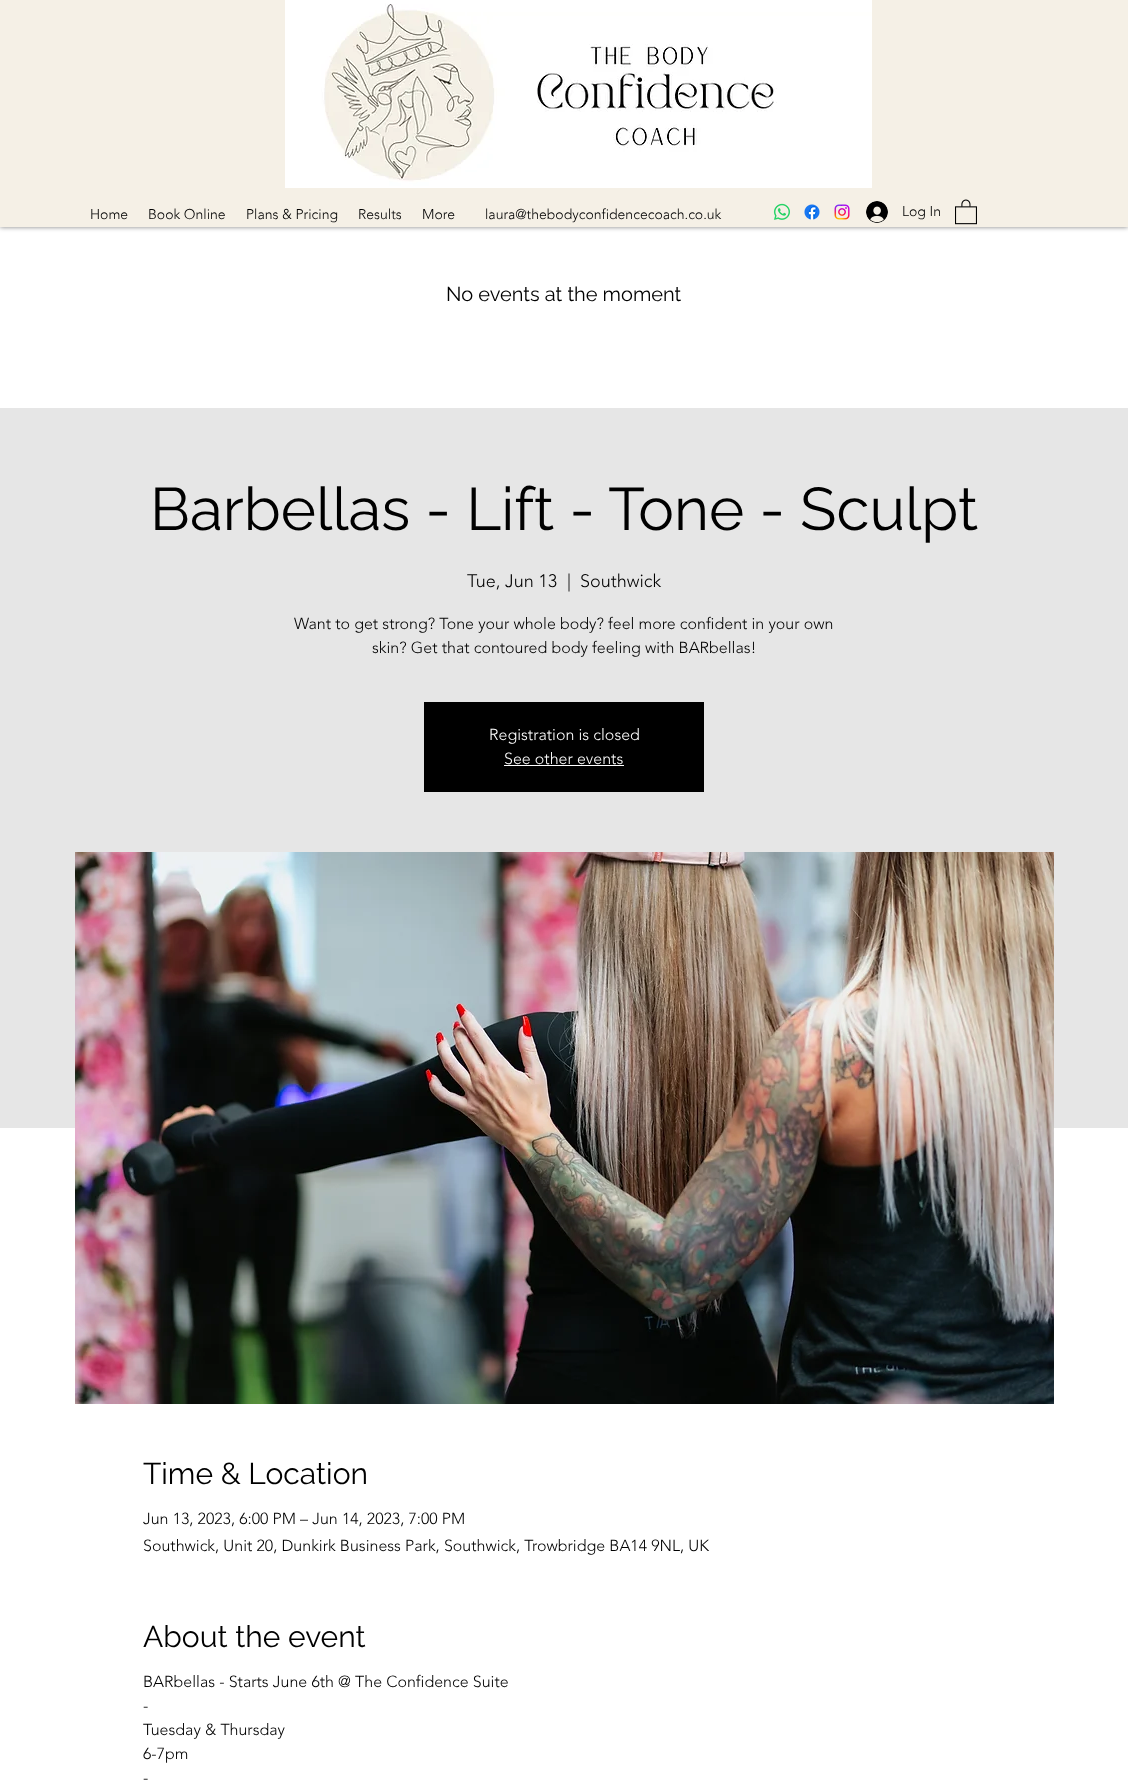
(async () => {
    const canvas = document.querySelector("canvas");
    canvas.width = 1128;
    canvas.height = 1785;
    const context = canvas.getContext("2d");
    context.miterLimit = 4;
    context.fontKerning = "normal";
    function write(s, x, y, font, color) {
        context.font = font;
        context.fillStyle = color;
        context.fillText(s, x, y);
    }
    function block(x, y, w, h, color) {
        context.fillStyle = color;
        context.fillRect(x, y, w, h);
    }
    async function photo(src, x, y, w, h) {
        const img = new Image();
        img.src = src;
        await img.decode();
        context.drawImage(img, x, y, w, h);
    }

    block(0, 0, 1128, 1785, "rgb(255, 255, 255)");
    context.fillStyle = "rgba(0, 0, 0, 0.5)";
    context.filter = "blur(2.5px)";
    context.beginPath();
    context.rect(0, 0, 1128, 227);
    context.fill();
    context.filter = "none";
    block(0, 0, 1128, 227, "rgb(245, 240, 230)");
    await photo("media/1.png", 285, 0, 587, 188);
    write("Home", 90, 219, "300 14px 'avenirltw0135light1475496'", "rgb(0, 0, 0)");
    write("Book Online", 148, 219, "300 14px 'avenirltw0135light1475496'", "rgb(0, 0, 0)");
    write("Plans & Pricing", 246, 219, "300 14px 'avenirltw0135light1475496'", "rgb(0, 0, 0)");
    write("Results", 358, 219, "300 14px 'avenirltw0135light1475496'", "rgb(0, 0, 0)");
    write("More", 422, 219, "300 14px 'avenirltw0135light1475496'", "rgb(0, 0, 0)");
    write("laura@thebodyconfidencecoach.co.uk", 485, 219, "300 14px 'avenirltw0135light1475496'", "rgb(0, 0, 0)");
    await photo("media/2.png", 773, 203, 17, 17);
    await photo("media/3.png", 804, 204, 16, 16);
    await photo("media/4.png", 834, 204, 16, 16);
    await photo("media/5.png", 866, 201, 22, 22);
    write("Log In", 902, 216, "300 14px 'avenirltw0135light1475496'", "rgb(0, 0, 0)");
    await photo("media/6.png", 955, 199, 22, 26);
    write("No events at the moment", 446, 301, "20px Raleway", "rgb(0, 0, 0)");
    block(0, 408, 1128, 720, "rgb(230, 230, 230)");
    write("Barbellas - Lift - Tone - Sculpt", 150, 530, "60px Raleway", "rgb(0, 0, 0)");
    write("Tue, Jun 13", 467, 587, "300 18px 'avenirltw0135light1475496'", "rgb(0, 0, 0)");
    write("|", 567, 587, "300 18px 'avenirltw0135light1475496'", "rgb(0, 0, 0)");
    write("Southwick", 580, 587, "300 18px 'avenirltw0135light1475496'", "rgb(0, 0, 0)");
    write("Want to get strong? Tone your whole body? feel more confident in your own", 294, 629, "300 16px 'avenirltw0135light1475496'", "rgb(0, 0, 0)");
    write("skin? Get that contoured body feeling with BARbellas!", 372, 653, "300 16px 'avenirltw0135light1475496'", "rgb(0, 0, 0)");
    block(424, 702, 280, 90, "rgb(0, 0, 0)");
    write("Registration is closed", 489, 740, "300 16px 'avenirltw0135light1475496'", "rgb(255, 255, 255)");
    write("See other events", 504, 764, "300 16px 'avenirltw0135light1475496'", "rgb(255, 255, 255)");
    block(504, 765, 120, 1, "rgb(255, 255, 255)");
    await photo("media/7.png", 75, 852, 979, 552);
    write("Time & Location", 143, 1484, "30px Raleway", "rgb(0, 0, 0)");
    write("Jun 13, 2023, 6:00 PM – Jun 14, 2023, 7:00 PM", 143, 1524, "300 16px 'avenirltw0135light1475496'", "rgb(0, 0, 0)");
    write("Southwick, Unit 20, Dunkirk Business Park, Southwick, Trowbridge BA14 9NL, UK", 143, 1551, "300 16px 'avenirltw0135light1475496'", "rgb(0, 0, 0)");
    write("About the event", 143, 1647, "30px Raleway", "rgb(0, 0, 0)");
    write("BARbellas - Starts June 6th @ The Confidence Suite", 143, 1687, "300 16px 'avenirltw0135light1475496'", "rgb(0, 0, 0)");
    write("-", 143, 1711, "300 16px 'avenirltw0135light1475496'", "rgb(0, 0, 0)");
    write("Tuesday & Thursday", 143, 1735, "300 16px 'avenirltw0135light1475496'", "rgb(0, 0, 0)");
    write("6-7pm", 143, 1759, "300 16px 'avenirltw0135light1475496'", "rgb(0, 0, 0)");
    write("-", 143, 1783, "300 16px 'avenirltw0135light1475496'", "rgb(0, 0, 0)");
})();
